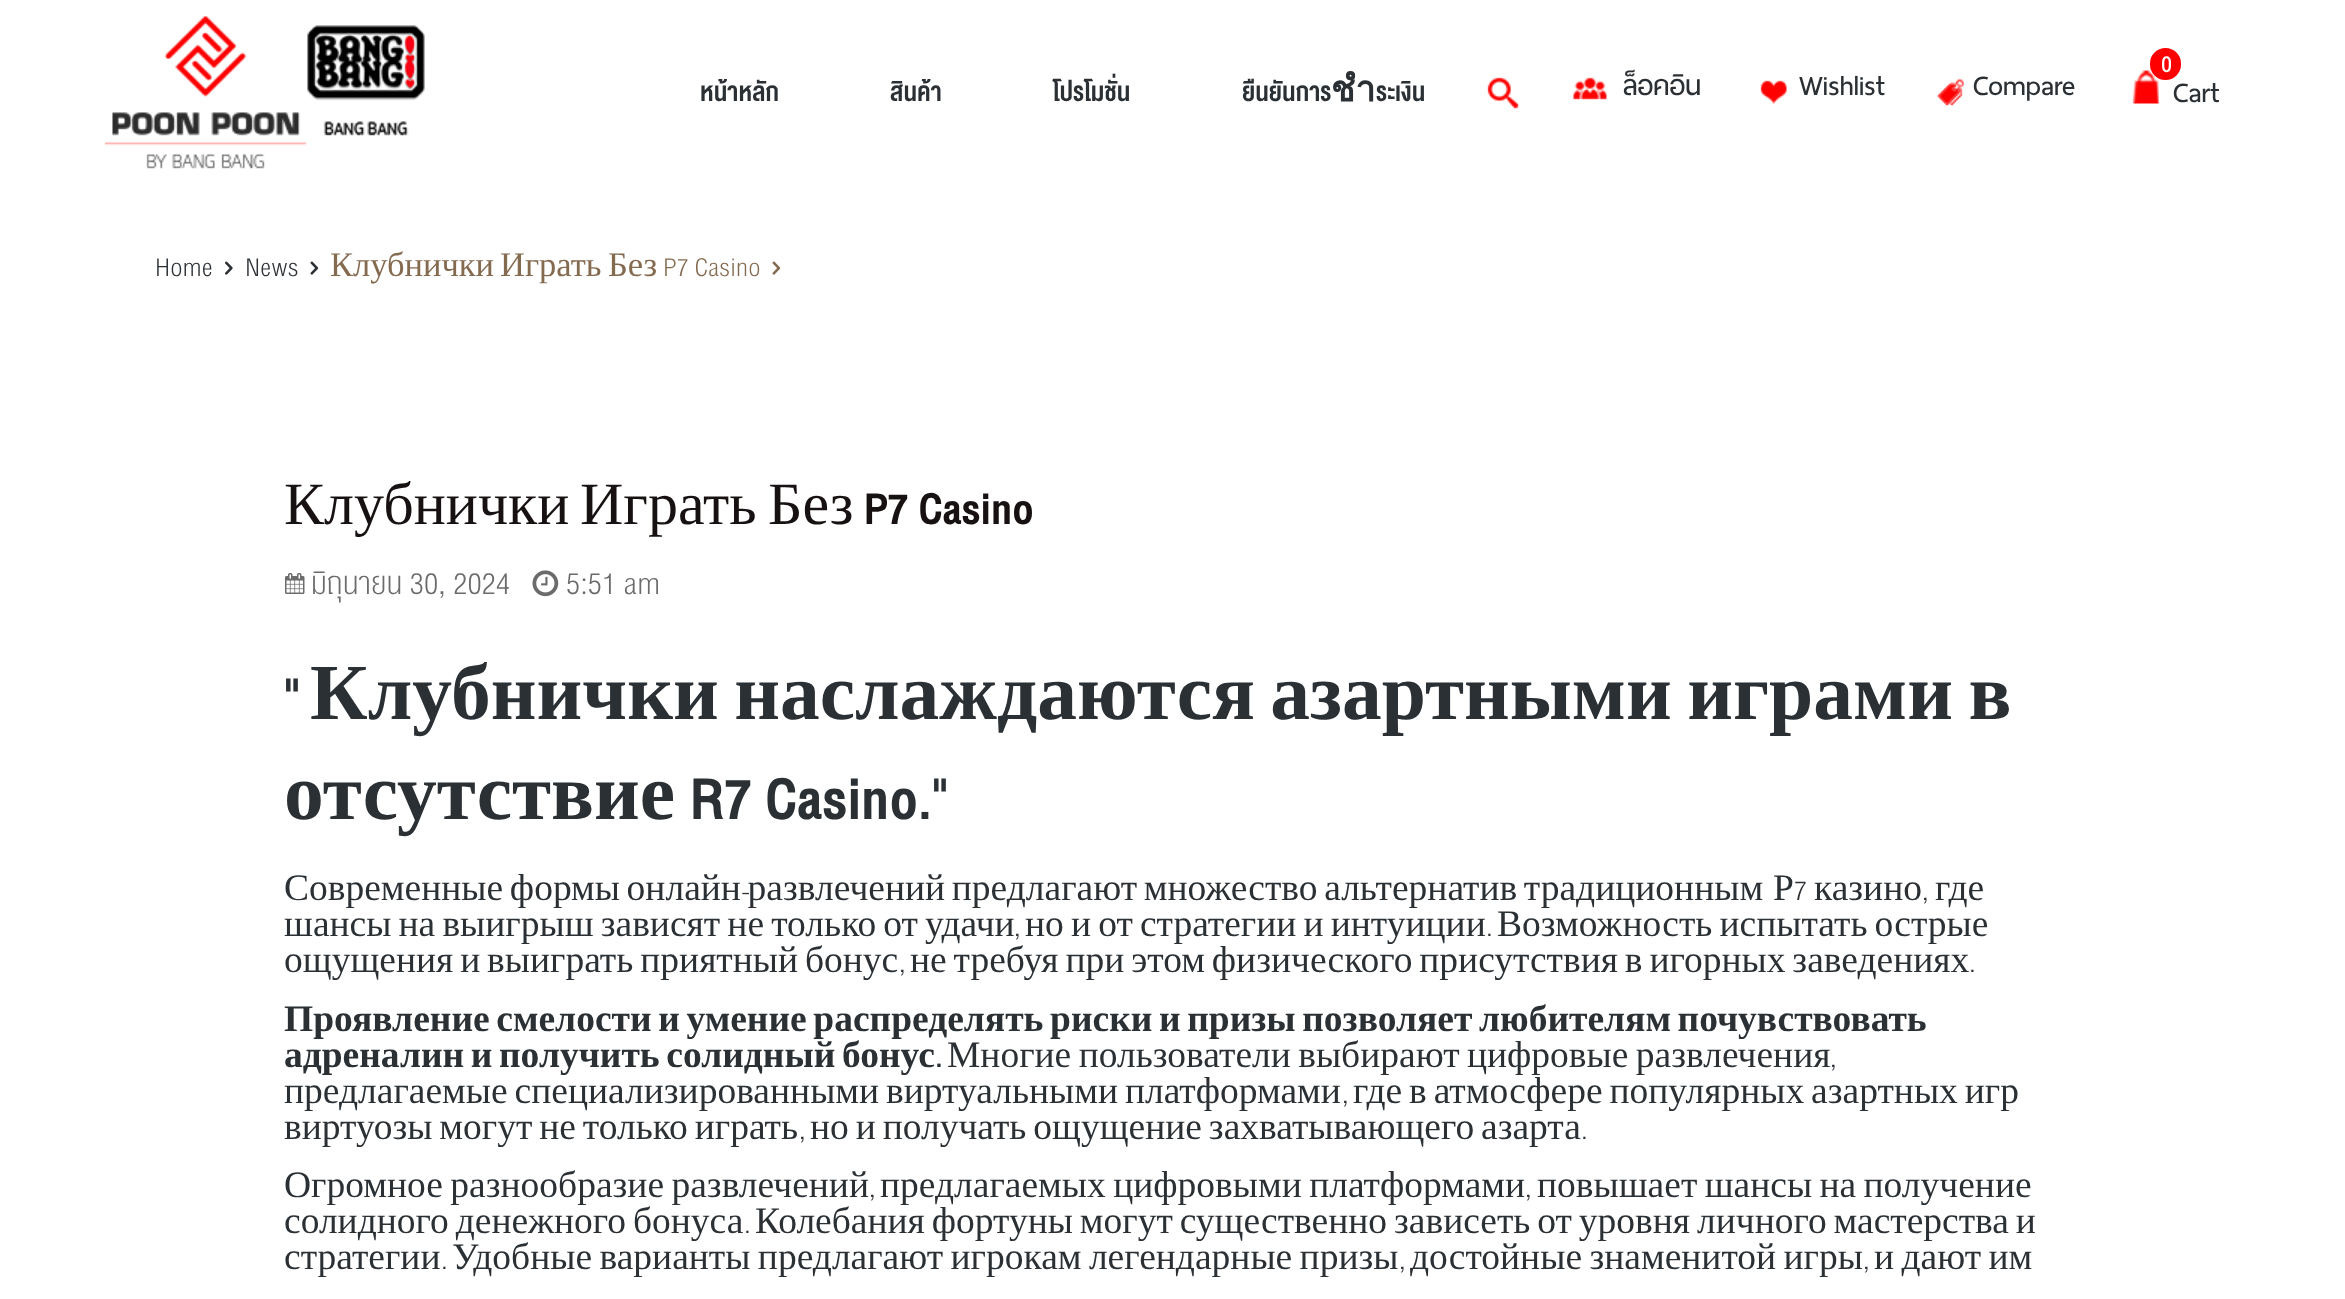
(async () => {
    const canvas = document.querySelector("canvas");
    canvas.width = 2345;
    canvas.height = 1299;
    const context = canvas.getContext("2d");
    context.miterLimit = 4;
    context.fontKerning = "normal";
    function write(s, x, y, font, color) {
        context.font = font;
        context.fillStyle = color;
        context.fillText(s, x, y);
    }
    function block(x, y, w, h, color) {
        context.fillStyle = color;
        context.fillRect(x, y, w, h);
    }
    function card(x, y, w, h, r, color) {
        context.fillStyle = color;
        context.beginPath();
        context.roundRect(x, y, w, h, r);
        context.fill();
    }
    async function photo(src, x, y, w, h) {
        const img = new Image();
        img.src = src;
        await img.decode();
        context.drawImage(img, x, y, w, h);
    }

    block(0, 0, 2345, 1299, "rgb(255, 255, 255)");
    await photo("media/1.png", 105, 16, 320, 153);
    write("หน้าหลัก", 700, 101, "bold 36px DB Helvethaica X", "rgb(43, 48, 53)");
    write("สินค้า", 890, 101, "bold 36px DB Helvethaica X", "rgb(43, 48, 53)");
    write("โปรโมชั่น", 1053, 101, "bold 36px DB Helvethaica X", "rgb(43, 48, 53)");
    write("ยืนยันการชำระเงิน", 1242, 101, "bold 36px DB Helvethaica X", "rgb(43, 48, 53)");
    await photo("media/2.png", 1487, 77, 32, 32);
    await photo("media/3.png", 1573, 77, 34, 23);
    write("ล็อคอิน", 1623, 95, "600 36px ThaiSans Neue", "rgb(43, 48, 53)");
    await photo("media/4.png", 1760, 80, 27, 24);
    write("Wishlist", 1799, 95, "600 36px ThaiSans Neue", "rgb(43, 48, 53)");
    await photo("media/5.png", 1937, 79, 27, 27);
    write("Compare", 1973, 95, "600 36px ThaiSans Neue", "rgb(43, 48, 53)");
    await photo("media/6.png", 2132, 70, 27, 34);
    card(2150, 48, 31, 32, 15.5, "rgb(255, 0, 0)");
    write("0", 2161, 72, "bold 30px 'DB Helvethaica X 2'", "rgb(255, 255, 255)");
    write("Cart", 2173, 102, "600 36px ThaiSans Neue", "rgb(43, 48, 53)");
    write("Home", 155, 276, "300 34.5px DB Helvethaica X", "rgb(43, 48, 53)");
    await photo("media/7.png", 225, 261, 8, 14);
    write("News", 245, 276, "300 34.5px DB Helvethaica X", "rgb(43, 48, 53)");
    await photo("media/8.png", 310, 261, 9, 14);
    write("Клубнички", 330, 276, "34.5px Liberation Serif", "rgb(132, 106, 79)");
    write("Играть", 500, 276, "34.5px Liberation Serif", "rgb(132, 106, 79)");
    write("Без", 608, 276, "34.5px Liberation Serif", "rgb(132, 106, 79)");
    write("P7 Casino", 663, 276, "300 34.5px DB Helvethaica X", "rgb(132, 106, 79)");
    await photo("media/9.png", 772, 261, 9, 14);
    write("Клубнички", 284, 524, "60px Liberation Serif", "rgb(24, 17, 17)");
    write("Играть", 580, 524, "60px Liberation Serif", "rgb(24, 17, 17)");
    write("Без", 768, 524, "60px Liberation Serif", "rgb(24, 17, 17)");
    write("P7 Casino", 864, 524, "bold 60px DB Helvethaica X", "rgb(24, 17, 17)");
    await photo("media/10.png", 285, 573, 20, 21);
    write("มิถุนายน 30, 2024", 311, 594, "300 42px DB Helvethaica X", "rgb(107, 107, 107)");
    await photo("media/11.png", 532, 570, 27, 27);
    write("5:51 am", 566, 594, "300 42px DB Helvethaica X", "rgb(107, 107, 107)");
    write("\"", 284, 719, "bold 79.5px DB Helvethaica X", "rgb(43, 48, 53)");
    context.wordSpacing = "-4.5px";
    write("Клубнички наслаждаются азартными играми в", 310, 719, "bold 79.5px Liberation Serif", "rgb(43, 48, 53)");
    context.wordSpacing = "0px";
    write("отсутствие", 284, 819, "bold 79.5px Liberation Serif", "rgb(43, 48, 53)");
    write("R7 Casino.\"", 690, 819, "bold 79.5px DB Helvethaica X", "rgb(43, 48, 53)");
    context.wordSpacing = "-2.75px";
    write("Современные формы онлайн развлечений предлагают множество альтернатив традиционным", 284, 900, "37.5px Liberation Serif", "rgb(43, 48, 53)");
    context.wordSpacing = "0px";
    write("Р", 1773, 900, "37.5px Liberation Serif", "rgb(43, 48, 53)");
    write("7", 1794, 900, "300 37.5px DB Helvethaica X", "rgb(43, 48, 53)");
    write("казино", 1814, 900, "37.5px Liberation Serif", "rgb(43, 48, 53)");
    write("где", 1935, 900, "37.5px Liberation Serif", "rgb(43, 48, 53)");
    write("-", 741, 900, "300 37.5px DB Helvethaica X", "rgb(43, 48, 53)");
    write(",", 1922, 900, "300 37.5px DB Helvethaica X", "rgb(43, 48, 53)");
    context.wordSpacing = "-2.25px";
    write("шансы на выигрыш зависят не только от удачи", 284, 936, "37.5px Liberation Serif", "rgb(43, 48, 53)");
    context.wordSpacing = "0px";
    write(",", 1014, 936, "300 37.5px DB Helvethaica X", "rgb(43, 48, 53)");
    context.wordSpacing = "-2.25px";
    write("но и от стратегии и интуиции", 1025, 936, "37.5px Liberation Serif", "rgb(43, 48, 53)");
    context.wordSpacing = "0px";
    write(".", 1486, 936, "300 37.5px DB Helvethaica X", "rgb(43, 48, 53)");
    context.wordSpacing = "-2.25px";
    write("Возможность испытать острые", 1497, 936, "37.5px Liberation Serif", "rgb(43, 48, 53)");
    context.wordSpacing = "-2.5px";
    write("ощущения и выиграть приятный бонус", 284, 972, "37.5px Liberation Serif", "rgb(43, 48, 53)");
    context.wordSpacing = "0px";
    write(",", 899, 972, "300 37.5px DB Helvethaica X", "rgb(43, 48, 53)");
    context.wordSpacing = "-2.5px";
    write("не требуя при этом физического присутствия в игорных заведениях", 910, 972, "37.5px Liberation Serif", "rgb(43, 48, 53)");
    context.wordSpacing = "0px";
    write(".", 1969, 972, "300 37.5px DB Helvethaica X", "rgb(43, 48, 53)");
    context.wordSpacing = "-2.75px";
    write("Проявление смелости и умение распределять риски и призы позволяет любителям почувствовать", 284, 1031, "bold 37.5px Liberation Serif", "rgb(43, 48, 53)");
    write("адреналин и получить солидный бонус", 284, 1067, "bold 37.5px Liberation Serif", "rgb(43, 48, 53)");
    context.wordSpacing = "0px";
    write(".", 935, 1067, "bold 37.5px 'DB Helvethaica X 2'", "rgb(43, 48, 53)");
    context.wordSpacing = "-2px";
    write("Многие пользователи выбирают цифровые развлечения", 947, 1067, "37.5px Liberation Serif", "rgb(43, 48, 53)");
    context.wordSpacing = "0px";
    write(",", 1830, 1067, "300 37.5px DB Helvethaica X", "rgb(43, 48, 53)");
    context.wordSpacing = "-2.5px";
    write("предлагаемые специализированными виртуальными платформами", 284, 1103, "37.5px Liberation Serif", "rgb(43, 48, 53)");
    context.wordSpacing = "0px";
    write(",", 1342, 1103, "300 37.5px DB Helvethaica X", "rgb(43, 48, 53)");
    context.wordSpacing = "-2.5px";
    write("где в атмосфере популярных азартных игр", 1353, 1103, "37.5px Liberation Serif", "rgb(43, 48, 53)");
    write("виртуозы могут не только играть", 284, 1139, "37.5px Liberation Serif", "rgb(43, 48, 53)");
    context.wordSpacing = "0px";
    write(",", 799, 1139, "300 37.5px DB Helvethaica X", "rgb(43, 48, 53)");
    context.wordSpacing = "-2.5px";
    write("но и получать ощущение захватывающего азарта", 810, 1139, "37.5px Liberation Serif", "rgb(43, 48, 53)");
    context.wordSpacing = "0px";
    write(".", 1581, 1139, "300 37.5px DB Helvethaica X", "rgb(43, 48, 53)");
    context.wordSpacing = "-2px";
    write("Огромное разнообразие развлечений", 284, 1197, "37.5px Liberation Serif", "rgb(43, 48, 53)");
    context.wordSpacing = "0px";
    write(",", 869, 1197, "300 37.5px DB Helvethaica X", "rgb(43, 48, 53)");
    context.wordSpacing = "-2px";
    write("предлагаемых цифровыми платформами", 880, 1197, "37.5px Liberation Serif", "rgb(43, 48, 53)");
    context.wordSpacing = "0px";
    write(",", 1525, 1197, "300 37.5px DB Helvethaica X", "rgb(43, 48, 53)");
    context.wordSpacing = "-2px";
    write("повышает шансы на получение", 1537, 1197, "37.5px Liberation Serif", "rgb(43, 48, 53)");
    context.wordSpacing = "-2.5px";
    write("солидного денежного бонуса", 284, 1233, "37.5px Liberation Serif", "rgb(43, 48, 53)");
    context.wordSpacing = "0px";
    write(".", 744, 1233, "300 37.5px DB Helvethaica X", "rgb(43, 48, 53)");
    context.wordSpacing = "-2.5px";
    write("Колебания фортуны могут существенно зависеть от уровня личного мастерства и", 755, 1233, "37.5px Liberation Serif", "rgb(43, 48, 53)");
    context.wordSpacing = "0px";
    write("стратегии", 284, 1269, "37.5px Liberation Serif", "rgb(43, 48, 53)");
    write(".", 441, 1269, "300 37.5px DB Helvethaica X", "rgb(43, 48, 53)");
    context.wordSpacing = "-2px";
    write("Удобные варианты предлагают игрокам легендарные призы", 452, 1269, "37.5px Liberation Serif", "rgb(43, 48, 53)");
    context.wordSpacing = "0px";
    write(",", 1399, 1269, "300 37.5px DB Helvethaica X", "rgb(43, 48, 53)");
    context.wordSpacing = "-2px";
    write("достойные знаменитой игры", 1410, 1269, "37.5px Liberation Serif", "rgb(43, 48, 53)");
    context.wordSpacing = "0px";
    write(",", 1863, 1269, "300 37.5px DB Helvethaica X", "rgb(43, 48, 53)");
    context.wordSpacing = "-2px";
    write("и дают им", 1874, 1269, "37.5px Liberation Serif", "rgb(43, 48, 53)");
})();
